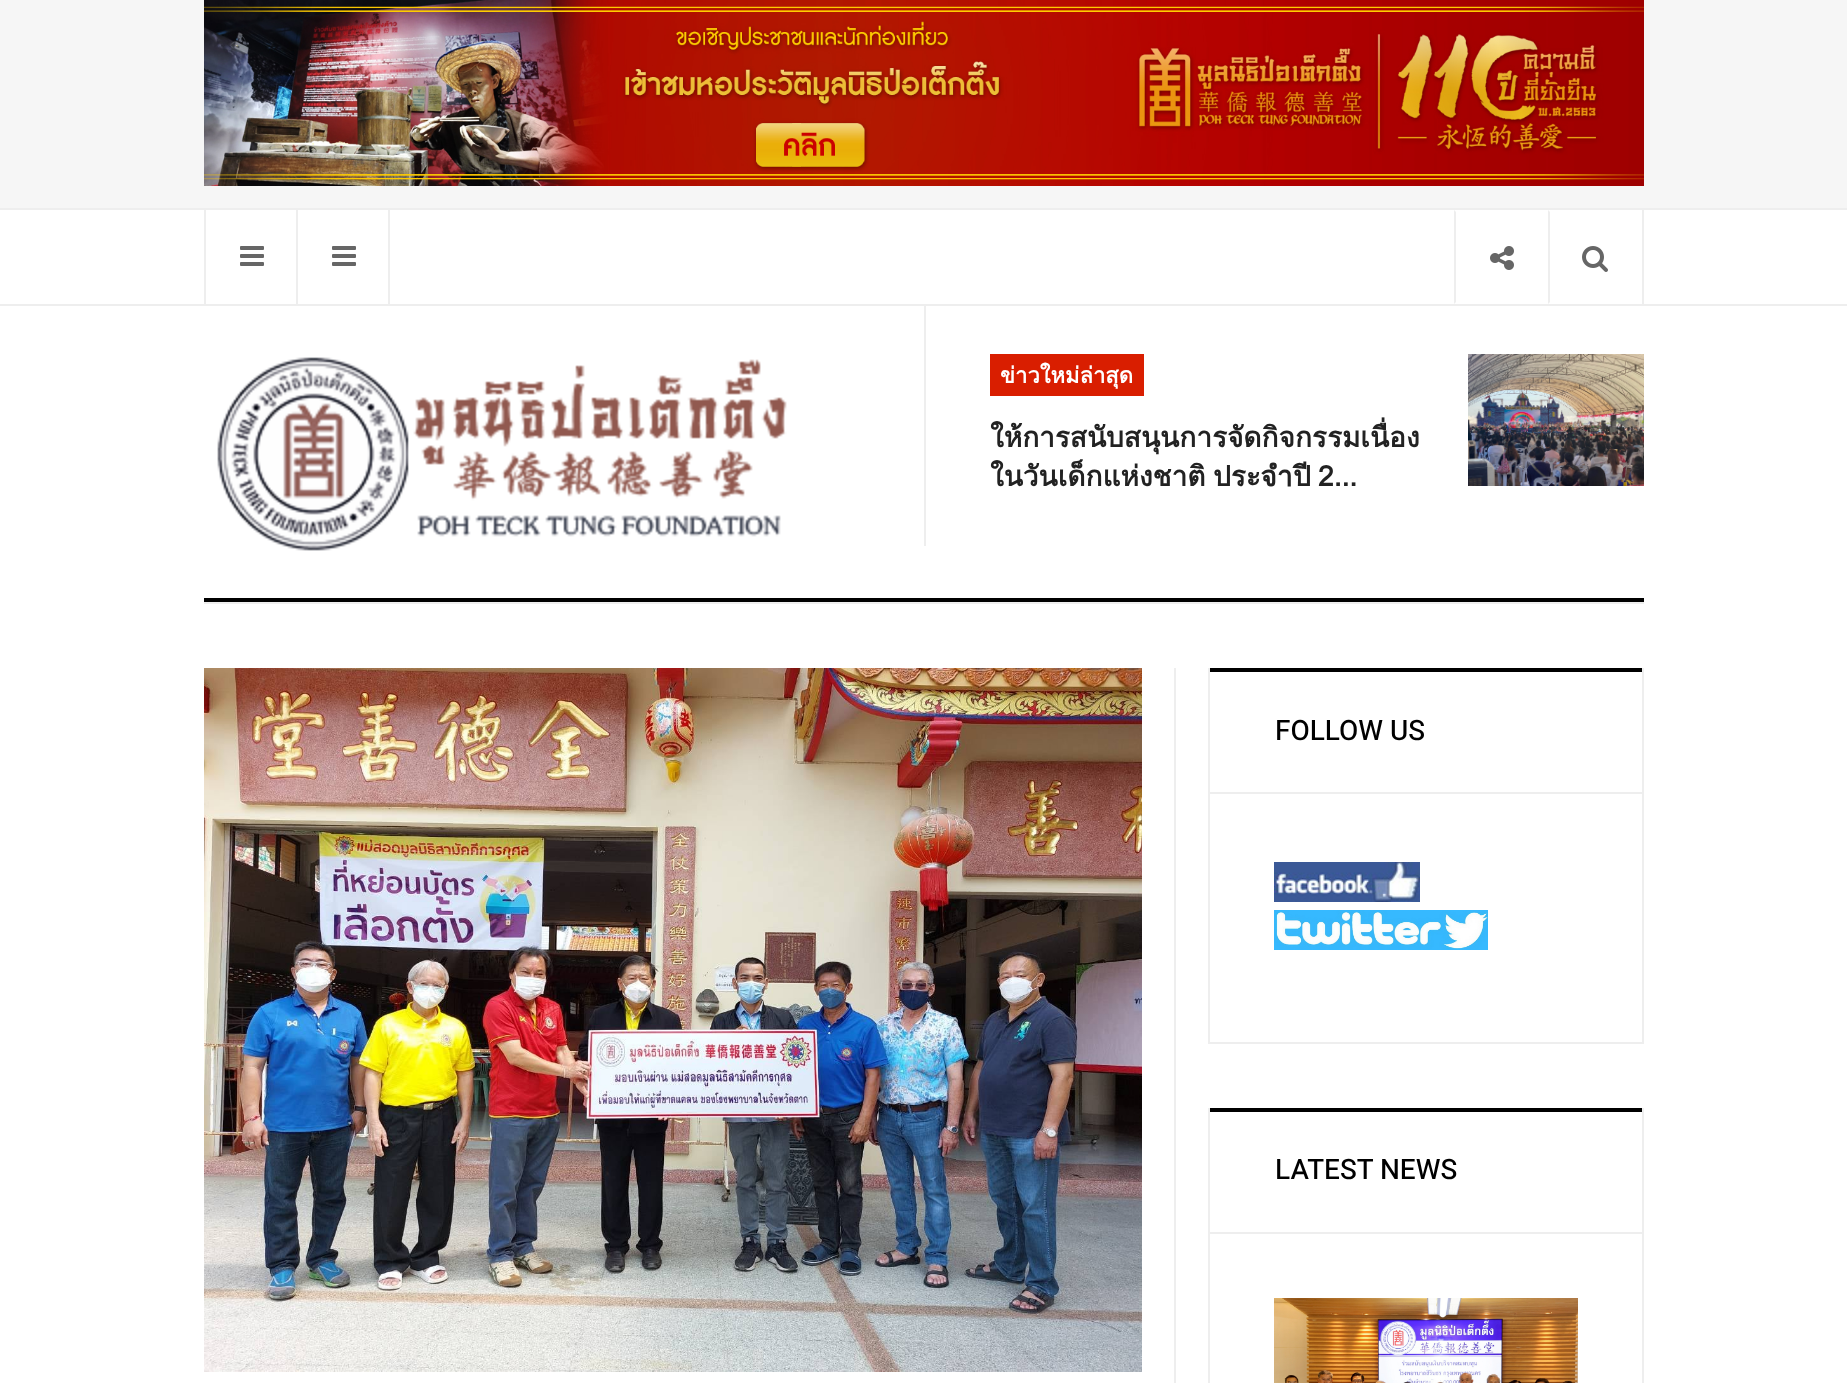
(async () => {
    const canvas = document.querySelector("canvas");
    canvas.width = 1847;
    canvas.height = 1383;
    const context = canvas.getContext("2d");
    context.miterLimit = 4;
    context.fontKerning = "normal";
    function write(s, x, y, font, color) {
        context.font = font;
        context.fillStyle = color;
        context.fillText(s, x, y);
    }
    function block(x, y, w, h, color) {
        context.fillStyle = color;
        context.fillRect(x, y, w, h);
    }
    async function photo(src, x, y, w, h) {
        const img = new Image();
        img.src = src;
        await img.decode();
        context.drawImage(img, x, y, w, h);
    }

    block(0, 0, 1847, 1383, "rgb(255, 255, 255)");
    block(0, 0, 1847, 208, "rgb(246, 246, 246)");
    await photo("media/1.png", 204, 0, 1440, 186);
    block(0, 208, 1847, 2, "rgb(238, 238, 238)");
    block(0, 304, 1847, 2, "rgb(238, 238, 238)");
    block(204, 210, 2, 94, "rgb(238, 238, 238)");
    await photo("media/2.png", 240, 246, 24, 20);
    block(388, 210, 2, 94, "rgb(238, 238, 238)");
    block(296, 210, 2, 94, "rgb(238, 238, 238)");
    await photo("media/2.png", 332, 246, 24, 20);
    context.beginPath();
    context.moveTo(1454, 304);
    context.lineTo(1454, 210);
    context.lineTo(1456, 212);
    context.lineTo(1456, 302);
    context.closePath();
    context.fill();
    await photo("media/3.png", 1490, 246, 24, 24);
    block(1642, 210, 2, 94, "rgb(238, 238, 238)");
    context.beginPath();
    context.moveTo(1548, 304);
    context.lineTo(1548, 210);
    context.lineTo(1550, 212);
    context.lineTo(1550, 302);
    context.closePath();
    context.fill();
    await photo("media/4.png", 1582, 246, 26, 26);
    await photo("media/5.png", 217, 357, 570, 194);
    block(924, 306, 2, 240, "rgb(238, 238, 238)");
    block(990, 354, 154, 42, "rgb(217, 30, 0)");
    write("ข่าวใหม่ล่าสุด", 1000, 383, "bold 22px Loma", "rgb(255, 255, 255)");
    write("ให้การสนับสนุนการจัดกิจกรรมเนื่อง", 990, 447, "bold 28px Loma", "rgb(34, 34, 34)");
    context.wordSpacing = "-2px";
    write("ในวันเด็กแห่งชาติ ประจำปี 2...", 990, 486, "bold 28px Loma", "rgb(34, 34, 34)");
    await photo("media/6.png", 1468, 354, 176, 132);
    block(204, 598, 1440, 4, "rgb(0, 0, 0)");
    block(204, 602, 1440, 2, "rgb(238, 238, 238)");
    await photo("media/7.png", 204, 668, 938, 704);
    block(1174, 668, 2, 715, "rgb(238, 238, 238)");
    block(1642, 668, 2, 376, "rgb(238, 238, 238)");
    block(1208, 1042, 436, 2, "rgb(238, 238, 238)");
    block(1208, 668, 2, 376, "rgb(238, 238, 238)");
    block(1210, 668, 432, 4, "rgb(0, 0, 0)");
    context.wordSpacing = "0px";
    write("FOLLOW US", 1275, 740, "500 28px Heebo", "rgb(0, 0, 0)");
    block(1210, 792, 432, 2, "rgb(238, 238, 238)");
    await photo("media/8.png", 1274, 862, 146, 40);
    await photo("media/9.png", 1274, 910, 214, 40);
    block(1642, 1108, 2, 275, "rgb(238, 238, 238)");
    block(1208, 1108, 2, 275, "rgb(238, 238, 238)");
    block(1210, 1108, 432, 4, "rgb(0, 0, 0)");
    write("LATEST NEWS", 1275, 1179, "500 28px Heebo", "rgb(0, 0, 0)");
    block(1210, 1232, 432, 2, "rgb(238, 238, 238)");
    await photo("media/10.png", 1274, 1298, 304, 85);
})();
